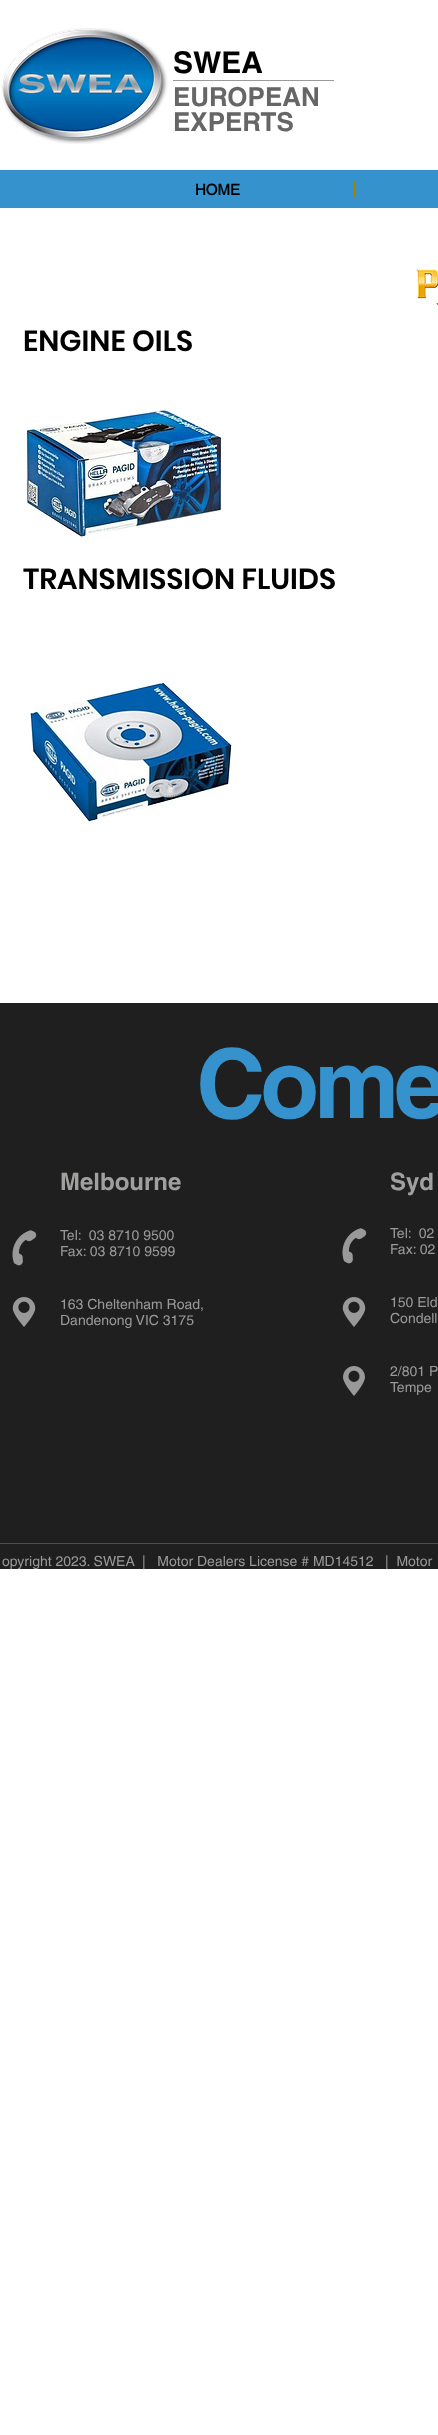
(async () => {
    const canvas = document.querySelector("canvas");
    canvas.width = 438;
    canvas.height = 2435;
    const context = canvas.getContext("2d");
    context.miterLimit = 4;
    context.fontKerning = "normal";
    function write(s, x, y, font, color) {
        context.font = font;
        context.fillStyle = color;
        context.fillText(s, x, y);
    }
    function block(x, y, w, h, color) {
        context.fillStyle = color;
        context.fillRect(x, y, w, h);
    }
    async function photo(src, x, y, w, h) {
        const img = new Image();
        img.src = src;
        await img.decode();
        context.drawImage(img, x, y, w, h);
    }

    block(0, 0, 438, 2435, "rgb(255, 255, 255)");
    await photo("media/1.png", 1, 28, 167, 116);
    write("SWEA", 173, 73, "bold 30px helvetica", "rgb(0, 0, 0)");
    block(173, 80, 161, 1, "rgb(154, 154, 154)");
    write("EUROPEAN", 173, 106, "bold 26px helvetica", "rgb(102, 102, 102)");
    write("EXPERTS", 173, 131, "bold 26px helvetica", "rgb(102, 102, 102)");
    block(0, 170, 438, 38, "rgb(53, 146, 204)");
    write("HOME", 195, 195, "bold 15px 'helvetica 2'", "rgb(0, 0, 0)");
    block(354, 182, 1, 16, "rgb(169, 130, 0)");
    await photo("media/2.png", 416, 269, 22, 36);
    write("ENGINE OILS", 23, 351, "600 29px Poppins", "rgb(0, 0, 0)");
    await photo("media/3.png", 26, 410, 196, 127);
    write("TRANSMISSION FLUIDS", 23, 589, "600 29px Poppins", "rgb(0, 0, 0)");
    await photo("media/4.png", 30, 682, 202, 141);
    block(0, 1003, 438, 566, "rgb(31, 31, 31)");
    context.letterSpacing = "-5px";
    write("Come", 196, 1118, "bold 96px helvetica", "rgb(53, 146, 204)");
    context.letterSpacing = "0px";
    write("Melbourne", 60, 1190, "bold 24px helvetica", "rgb(160, 160, 159)");
    write("Syd", 390, 1190, "bold 24px helvetica", "rgb(160, 160, 159)");
    await photo("media/5.png", 12, 1230, 25, 36);
    write("Tel:  03 8710 9500", 60, 1240, "14px helvetica", "rgb(153, 153, 153)");
    write("Fax: 03 8710 9599", 60, 1256, "14px helvetica", "rgb(153, 153, 153)");
    await photo("media/5.png", 342, 1228, 25, 36);
    write("Tel:  02", 390, 1238, "14px helvetica", "rgb(153, 153, 153)");
    write("Fax: 02", 390, 1254, "14px helvetica", "rgb(153, 153, 153)");
    await photo("media/6.png", 12, 1297, 24, 30);
    write("163 Cheltenham Road,", 60, 1309, "14px helvetica", "rgb(153, 153, 153)");
    write("Dandenong VIC 3175", 60, 1325, "14px helvetica", "rgb(153, 153, 153)");
    await photo("media/6.png", 342, 1297, 24, 30);
    write("150 Eld", 390, 1307, "14px helvetica", "rgb(153, 153, 153)");
    write("Condell", 390, 1323, "14px helvetica", "rgb(153, 153, 153)");
    await photo("media/7.png", 343, 1366, 22, 30);
    write("2/801 P", 390, 1376, "14px helvetica", "rgb(153, 153, 153)");
    write("Tempe", 390, 1392, "14px helvetica", "rgb(153, 153, 153)");
    block(0, 1543, 438, 1, "rgb(78, 78, 78)");
    write("opyright 2023. SWEA", 2, 1566, "14px helvetica", "rgb(153, 153, 153)");
    write("|   Motor Dealers License # MD14512", 142, 1566, "14px helvetica", "rgb(153, 153, 153)");
    write("|  Motor", 385, 1566, "14px helvetica", "rgb(153, 153, 153)");
})();
